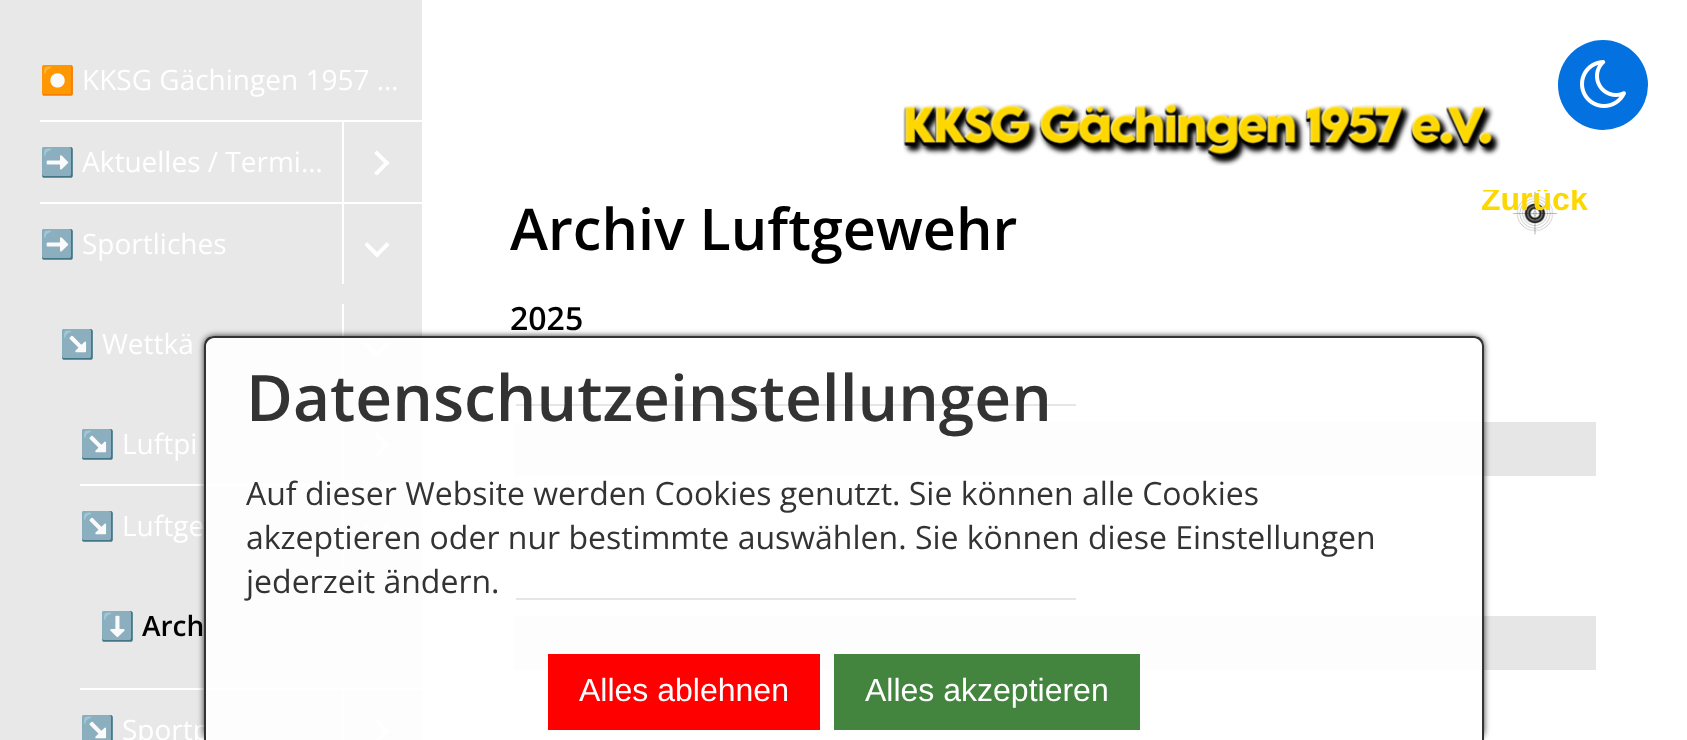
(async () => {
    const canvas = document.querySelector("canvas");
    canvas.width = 1687;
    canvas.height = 740;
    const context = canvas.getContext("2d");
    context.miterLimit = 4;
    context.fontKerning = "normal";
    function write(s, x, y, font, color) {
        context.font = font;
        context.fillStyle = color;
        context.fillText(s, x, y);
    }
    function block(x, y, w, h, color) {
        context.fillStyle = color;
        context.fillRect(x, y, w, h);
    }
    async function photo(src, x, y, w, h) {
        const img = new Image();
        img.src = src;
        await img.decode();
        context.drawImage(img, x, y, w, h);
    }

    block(0, 0, 1687, 740, "rgb(255, 255, 255)");
    block(0, 0, 422, 740, "rgb(232, 232, 232)");
    write("⏺️", 40, 90, "28px Noto Color Emoji", "rgb(255, 255, 255)");
    write("KKSG Gächingen 1957 …", 82, 90, "28px Open Sans", "rgb(255, 255, 255)");
    block(40, 120, 382, 2, "rgb(255, 255, 255)");
    write("➡️", 40, 172, "28px Noto Color Emoji", "rgb(255, 255, 255)");
    write("Aktuelles / Termi…", 82, 172, "28px Open Sans", "rgb(255, 255, 255)");
    block(342, 122, 2, 80, "rgb(255, 255, 255)");
    context.beginPath();
    context.moveTo(374, 153);
    context.lineTo(377, 150.5);
    context.lineTo(389.5, 163);
    context.lineTo(387, 166);
    context.closePath();
    context.fill();
    context.beginPath();
    context.moveTo(374, 173);
    context.lineTo(387, 160);
    context.lineTo(389.5, 163);
    context.lineTo(377, 175.5);
    context.closePath();
    context.fill();
    block(40, 202, 382, 2, "rgb(255, 255, 255)");
    write("➡️", 40, 254, "28px Noto Color Emoji", "rgb(255, 255, 255)");
    write("Sportliches", 82, 254, "28px Open Sans", "rgb(255, 255, 255)");
    block(342, 204, 2, 80, "rgb(255, 255, 255)");
    context.beginPath();
    context.moveTo(387, 242);
    context.lineTo(389.5, 245);
    context.lineTo(377, 257.5);
    context.lineTo(374, 255);
    context.closePath();
    context.fill();
    context.beginPath();
    context.moveTo(367, 242);
    context.lineTo(380, 255);
    context.lineTo(377, 257.5);
    context.lineTo(364.5, 245);
    context.closePath();
    context.fill();
    write("↘️", 60, 354, "28px Noto Color Emoji", "rgb(255, 255, 255)");
    write("Wettkä", 102, 354, "28px Open Sans", "rgb(255, 255, 255)");
    block(342, 304, 2, 80, "rgb(255, 255, 255)");
    context.beginPath();
    context.moveTo(387, 342);
    context.lineTo(389.5, 345);
    context.lineTo(377, 357.5);
    context.lineTo(374, 355);
    context.closePath();
    context.fill();
    context.beginPath();
    context.moveTo(367, 342);
    context.lineTo(380, 355);
    context.lineTo(377, 357.5);
    context.lineTo(364.5, 345);
    context.closePath();
    context.fill();
    write("↘️", 80, 454, "28px Noto Color Emoji", "rgb(255, 255, 255)");
    write("Luftpi", 122, 454, "28px Open Sans", "rgb(255, 255, 255)");
    block(342, 404, 2, 80, "rgb(255, 255, 255)");
    context.beginPath();
    context.moveTo(374, 435);
    context.lineTo(377, 432.5);
    context.lineTo(389.5, 445);
    context.lineTo(387, 448);
    context.closePath();
    context.fill();
    context.beginPath();
    context.moveTo(374, 455);
    context.lineTo(387, 442);
    context.lineTo(389.5, 445);
    context.lineTo(377, 457.5);
    context.closePath();
    context.fill();
    block(80, 484, 342, 2, "rgb(255, 255, 255)");
    write("↘️", 80, 536, "28px Noto Color Emoji", "rgb(255, 255, 255)");
    write("Luftge", 122, 536, "28px Open Sans", "rgb(255, 255, 255)");
    block(342, 486, 2, 80, "rgb(255, 255, 255)");
    context.beginPath();
    context.moveTo(387, 524);
    context.lineTo(389.5, 527);
    context.lineTo(377, 539.5);
    context.lineTo(374, 537);
    context.closePath();
    context.fill();
    context.beginPath();
    context.moveTo(367, 524);
    context.lineTo(380, 537);
    context.lineTo(377, 539.5);
    context.lineTo(364.5, 527);
    context.closePath();
    context.fill();
    write("⬇️", 100, 636, "bold 28px Noto Color Emoji", "rgb(0, 0, 0)");
    write("Arch", 142, 636, "600 28px Open Sans", "rgb(0, 0, 0)");
    block(80, 688, 342, 2, "rgb(255, 255, 255)");
    write("↘️", 80, 740, "28px Noto Color Emoji", "rgb(255, 255, 255)");
    write("Sportp", 122, 740, "28px Open Sans", "rgb(255, 255, 255)");
    block(342, 690, 2, 50, "rgb(255, 255, 255)");
    context.beginPath();
    context.moveTo(374, 721);
    context.lineTo(377, 718.5);
    context.lineTo(389.5, 731);
    context.lineTo(387, 734);
    context.closePath();
    context.fill();
    context.beginPath();
    context.moveTo(374, 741);
    context.lineTo(387, 728);
    context.lineTo(389.5, 731);
    context.lineTo(377, 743.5);
    context.closePath();
    context.fill();
    await photo("media/1.png", 903, 102, 598, 64);
    await photo("media/2.png", 1512, 191, 46, 44);
    context.save();
    context.beginPath();
    context.rect(1470, 190, 128, 58);
    context.clip();
    write("Zurück", 1481, 210, "bold 32px Liberation Sans", "rgb(253, 215, 0)");
    context.restore();
    write("Archiv Luftgewehr", 510, 250, "600 57.5px Open Sans", "rgb(0, 0, 0)");
    write("2025", 510, 330, "600 32px Open Sans", "rgb(0, 0, 0)");
    block(516, 404, 560, 2, "rgb(0, 0, 0)");
    block(514, 422, 1082, 54, "rgb(230, 230, 230)");
    block(516, 598, 560, 2, "rgb(0, 0, 0)");
    block(514, 616, 1082, 54, "rgb(230, 230, 230)");
    context.fillStyle = "rgb(3, 113, 223)";
    context.beginPath();
    context.arc(1603, 85, 45, 0, Math.PI * 2);
    context.fill();
    await photo("media/3.png", 1580, 60, 46, 48);
    context.save();
    context.beginPath();
    context.moveTo(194, 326);
    context.lineTo(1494, 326);
    context.lineTo(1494, 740);
    context.lineTo(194, 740);
    context.closePath();
    context.moveTo(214, 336);
    context.lineTo(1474, 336);
    context.bezierCurveTo(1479.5, 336, 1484, 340.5, 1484, 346);
    context.lineTo(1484, 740);
    context.lineTo(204, 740);
    context.lineTo(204, 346);
    context.bezierCurveTo(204, 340.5, 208.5, 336, 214, 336);
    context.closePath();
    context.clip("evenodd");
    context.fillStyle = "rgba(0, 0, 0, 0.8)";
    context.filter = "blur(3px)";
    context.beginPath();
    context.roundRect(204, 336, 1280, 404, 10);
    context.fill();
    context.filter = "none";
    context.restore();
    context.fillStyle = "rgba(255, 255, 255, 0.9)";
    context.beginPath();
    context.roundRect(204, 336, 1280, 404, [10, 10, 0, 0]);
    context.fill();
    context.fillStyle = "rgb(51, 51, 51)";
    context.beginPath();
    context.moveTo(214, 336);
    context.lineTo(1474, 336);
    context.bezierCurveTo(1480, 336, 1484, 340, 1484, 346);
    context.lineTo(1484, 740);
    context.lineTo(204, 740);
    context.lineTo(204, 346);
    context.bezierCurveTo(204, 340, 208, 336, 214, 336);
    context.closePath();
    context.moveTo(214, 338);
    context.lineTo(1474, 338);
    context.bezierCurveTo(1478, 338, 1482, 342, 1482, 346);
    context.lineTo(1482, 740);
    context.lineTo(206, 740);
    context.lineTo(206, 346);
    context.bezierCurveTo(206, 342, 210, 338, 214, 338);
    context.closePath();
    context.fill("evenodd");
    write("Datenschutzeinstellungen", 246, 421, "600 64px Open Sans", "rgb(51, 51, 51)");
    write("Auf dieser Website werden Cookies genutzt. Sie können alle Cookies", 246, 505, "32px Open Sans", "rgb(51, 51, 51)");
    write("akzeptieren oder nur bestimmte auswählen. Sie können diese Einstellungen", 246, 549, "32px Open Sans", "rgb(51, 51, 51)");
    write("jederzeit ändern.", 246, 593, "32px Open Sans", "rgb(51, 51, 51)");
    block(548, 654, 272, 76, "rgb(255, 0, 0)");
    write("Alles ablehnen", 579, 701, "32px Liberation Sans", "rgb(255, 255, 255)");
    block(834, 654, 306, 76, "rgb(67, 133, 63)");
    write("Alles akzeptieren", 865, 701, "32px Liberation Sans", "rgb(255, 255, 255)");
})();
